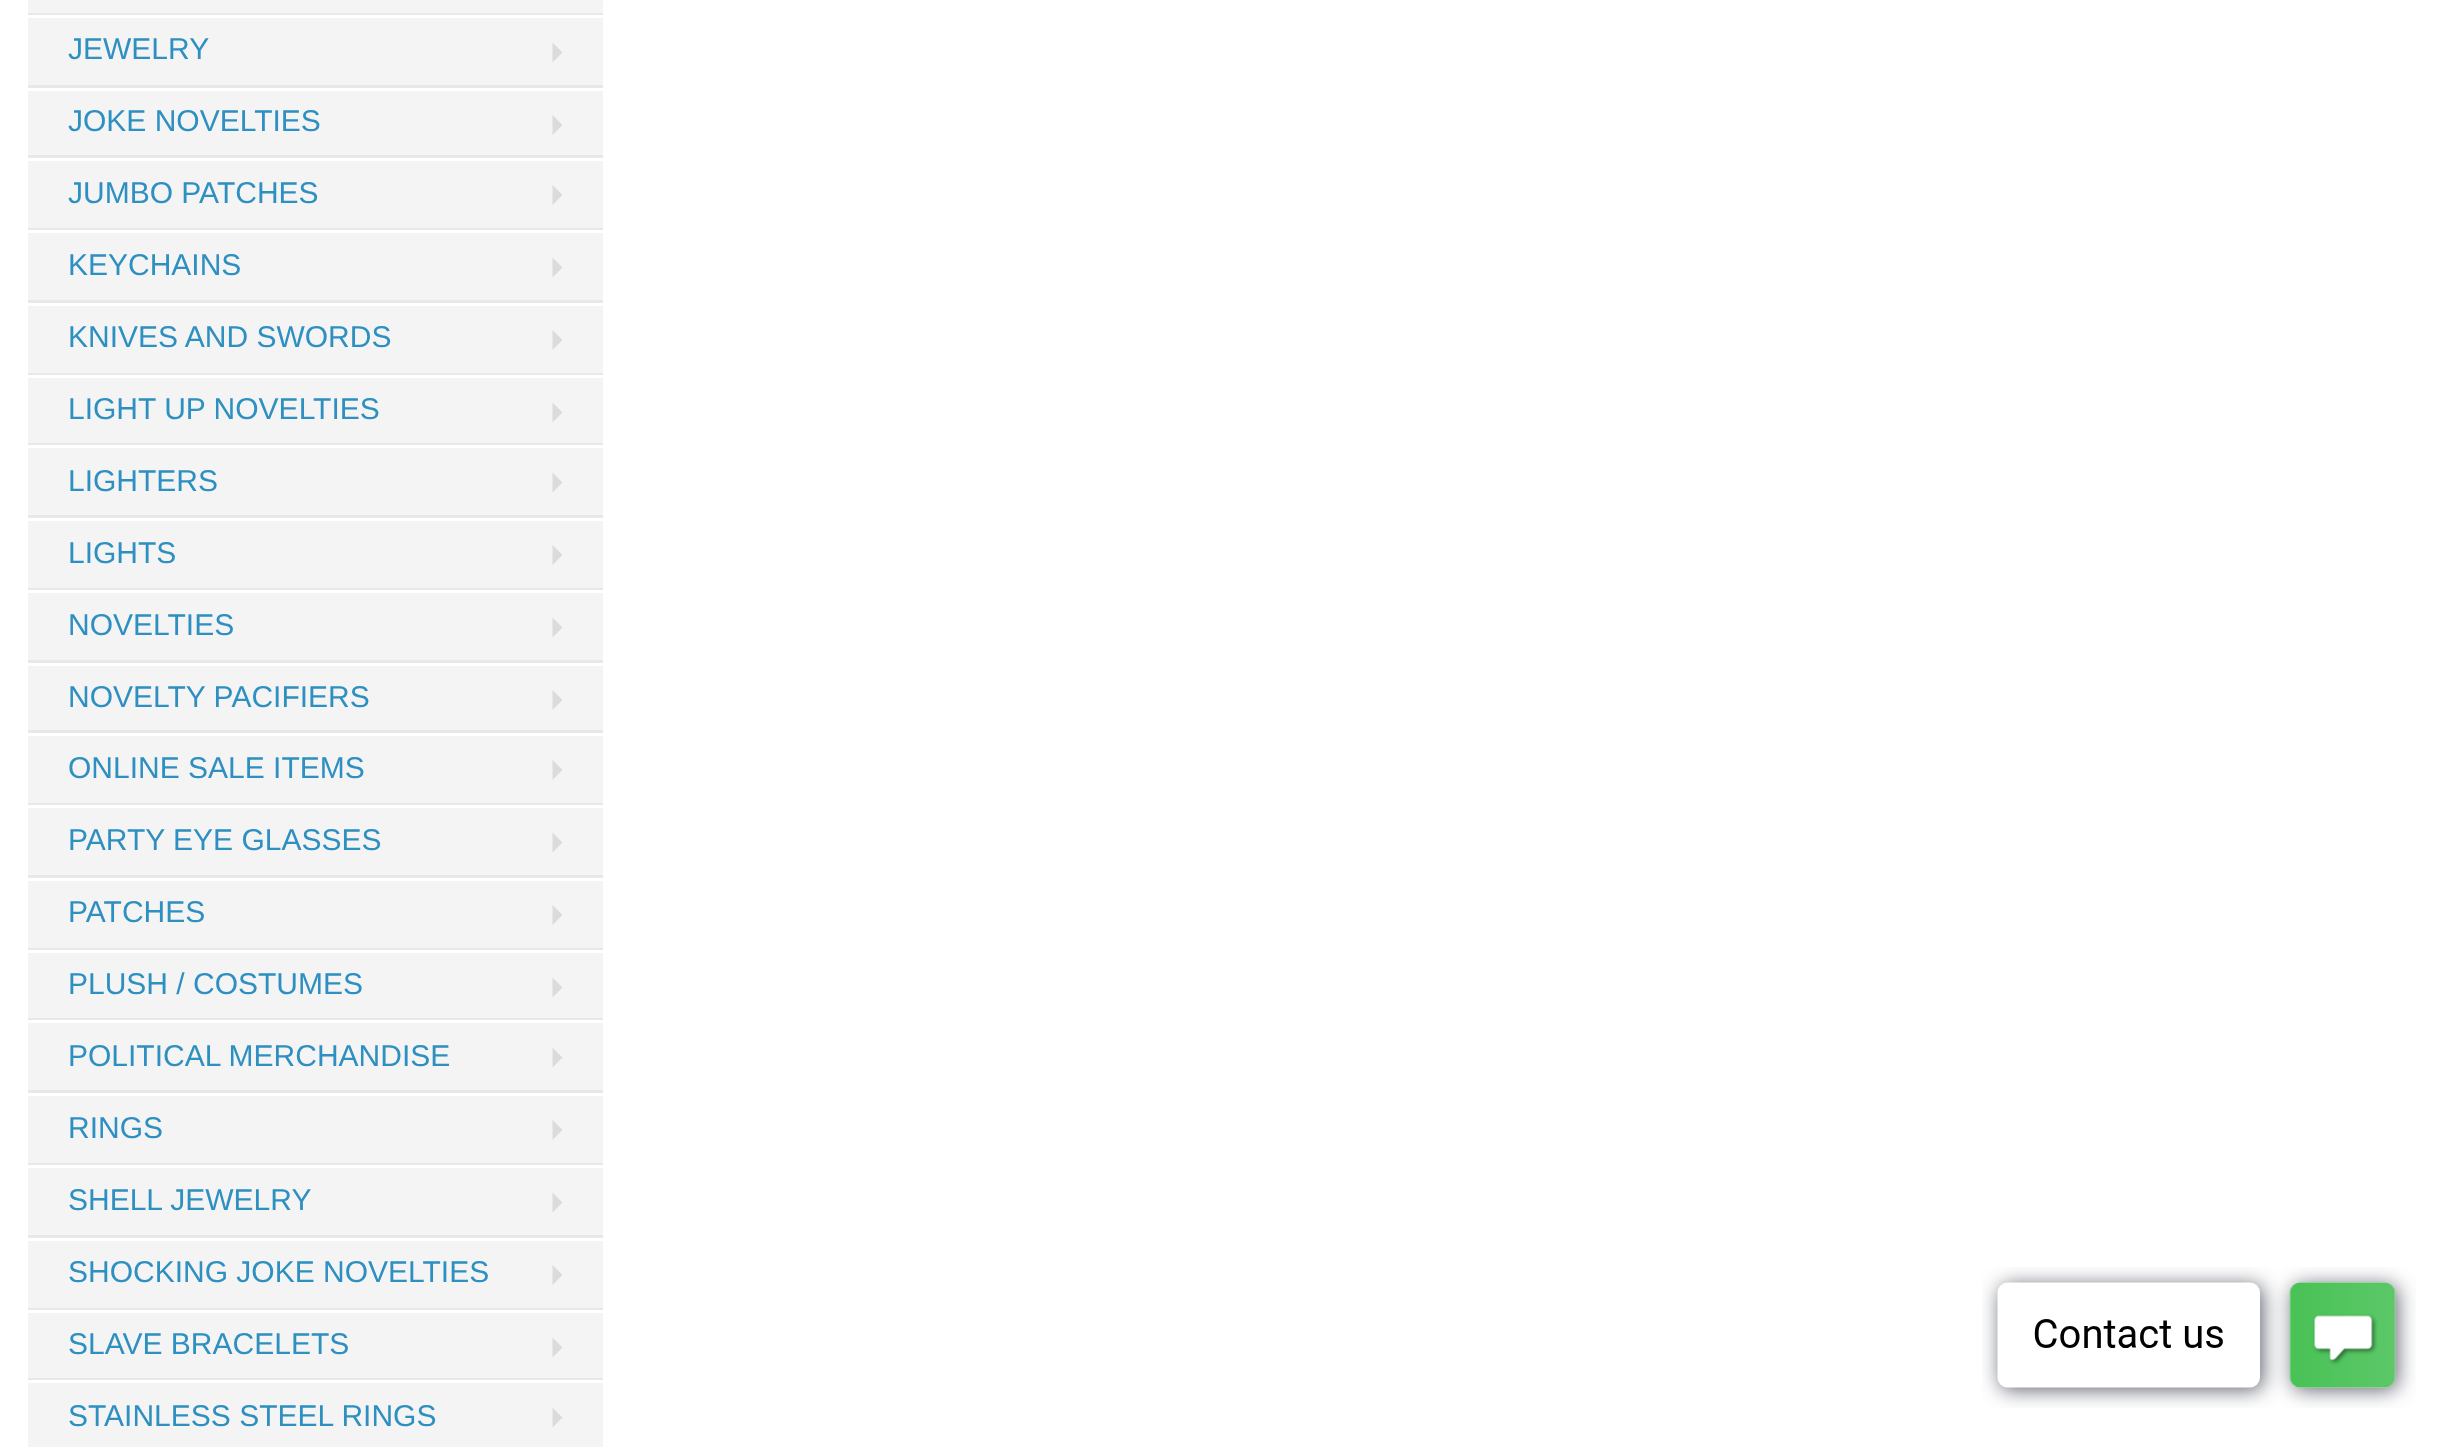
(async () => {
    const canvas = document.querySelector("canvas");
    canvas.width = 2453;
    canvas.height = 1447;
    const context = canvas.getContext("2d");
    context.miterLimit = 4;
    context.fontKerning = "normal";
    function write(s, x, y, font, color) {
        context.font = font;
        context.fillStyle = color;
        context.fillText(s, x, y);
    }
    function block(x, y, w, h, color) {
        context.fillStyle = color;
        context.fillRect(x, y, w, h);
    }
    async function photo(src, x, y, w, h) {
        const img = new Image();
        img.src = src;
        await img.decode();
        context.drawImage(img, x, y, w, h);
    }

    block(0, 0, 2453, 1447, "rgb(255, 255, 255)");
    block(28, 0, 575, 13, "rgb(244, 244, 244)");
    block(28, 13, 575, 2, "rgb(232, 232, 232)");
    block(28, 18, 575, 67, "rgb(244, 244, 244)");
    block(28, 85, 575, 3, "rgb(232, 232, 232)");
    write("JEWELRY", 68, 59, "30px Liberation Sans", "rgb(46, 143, 193)");
    context.fillStyle = "rgb(219, 219, 219)";
    context.beginPath();
    context.moveTo(552.5, 62.5);
    context.lineTo(552.5, 42.5);
    context.lineTo(562.5, 52.5);
    context.closePath();
    context.fill();
    block(28, 91, 575, 64, "rgb(244, 244, 244)");
    block(28, 155, 575, 3, "rgb(232, 232, 232)");
    write("JOKE NOVELTIES", 68, 131, "30px Liberation Sans", "rgb(46, 143, 193)");
    context.fillStyle = "rgb(219, 219, 219)";
    context.beginPath();
    context.moveTo(552.5, 135);
    context.lineTo(552.5, 115);
    context.lineTo(562.5, 125);
    context.closePath();
    context.fill();
    block(28, 161, 575, 67, "rgb(244, 244, 244)");
    block(28, 228, 575, 2, "rgb(232, 232, 232)");
    write("JUMBO PATCHES", 68, 203, "30px Liberation Sans", "rgb(46, 143, 193)");
    context.fillStyle = "rgb(219, 219, 219)";
    context.beginPath();
    context.moveTo(552.5, 205);
    context.lineTo(552.5, 185);
    context.lineTo(562.5, 195);
    context.closePath();
    context.fill();
    block(28, 233, 575, 67, "rgb(244, 244, 244)");
    block(28, 300, 575, 3, "rgb(232, 232, 232)");
    write("KEYCHAINS", 68, 275, "30px Liberation Sans", "rgb(46, 143, 193)");
    context.fillStyle = "rgb(219, 219, 219)";
    context.beginPath();
    context.moveTo(552.5, 277.5);
    context.lineTo(552.5, 257.5);
    context.lineTo(562.5, 267.5);
    context.closePath();
    context.fill();
    block(28, 306, 575, 67, "rgb(244, 244, 244)");
    block(28, 373, 575, 2, "rgb(232, 232, 232)");
    write("KNIVES AND SWORDS", 68, 347, "30px Liberation Sans", "rgb(46, 143, 193)");
    context.fillStyle = "rgb(219, 219, 219)";
    context.beginPath();
    context.moveTo(552.5, 350);
    context.lineTo(552.5, 330);
    context.lineTo(562.5, 340);
    context.closePath();
    context.fill();
    block(28, 378, 575, 65, "rgb(244, 244, 244)");
    block(28, 443, 575, 2, "rgb(232, 232, 232)");
    write("LIGHT UP NOVELTIES", 68, 419, "30px Liberation Sans", "rgb(46, 143, 193)");
    context.fillStyle = "rgb(219, 219, 219)";
    context.beginPath();
    context.moveTo(552.5, 422.5);
    context.lineTo(552.5, 402.5);
    context.lineTo(562.5, 412.5);
    context.closePath();
    context.fill();
    block(28, 448, 575, 67, "rgb(244, 244, 244)");
    block(28, 515, 575, 3, "rgb(232, 232, 232)");
    write("LIGHTERS", 68, 491, "30px Liberation Sans", "rgb(46, 143, 193)");
    context.fillStyle = "rgb(219, 219, 219)";
    context.beginPath();
    context.moveTo(552.5, 492.5);
    context.lineTo(552.5, 472.5);
    context.lineTo(562.5, 482.5);
    context.closePath();
    context.fill();
    block(28, 521, 575, 67, "rgb(244, 244, 244)");
    block(28, 588, 575, 2, "rgb(232, 232, 232)");
    write("LIGHTS", 68, 563, "30px Liberation Sans", "rgb(46, 143, 193)");
    context.fillStyle = "rgb(219, 219, 219)";
    context.beginPath();
    context.moveTo(552.5, 565);
    context.lineTo(552.5, 545);
    context.lineTo(562.5, 555);
    context.closePath();
    context.fill();
    block(28, 593, 575, 67, "rgb(244, 244, 244)");
    block(28, 660, 575, 3, "rgb(232, 232, 232)");
    write("NOVELTIES", 68, 635, "30px Liberation Sans", "rgb(46, 143, 193)");
    context.fillStyle = "rgb(219, 219, 219)";
    context.beginPath();
    context.moveTo(552.5, 637.5);
    context.lineTo(552.5, 617.5);
    context.lineTo(562.5, 627.5);
    context.closePath();
    context.fill();
    block(28, 666, 575, 64, "rgb(244, 244, 244)");
    block(28, 730, 575, 3, "rgb(232, 232, 232)");
    write("NOVELTY PACIFIERS", 68, 707, "30px Liberation Sans", "rgb(46, 143, 193)");
    context.fillStyle = "rgb(219, 219, 219)";
    context.beginPath();
    context.moveTo(552.5, 710);
    context.lineTo(552.5, 690);
    context.lineTo(562.5, 700);
    context.closePath();
    context.fill();
    block(28, 736, 575, 67, "rgb(244, 244, 244)");
    block(28, 803, 575, 2, "rgb(232, 232, 232)");
    write("ONLINE SALE ITEMS", 68, 778, "30px Liberation Sans", "rgb(46, 143, 193)");
    context.fillStyle = "rgb(219, 219, 219)";
    context.beginPath();
    context.moveTo(552.5, 780);
    context.lineTo(552.5, 760);
    context.lineTo(562.5, 770);
    context.closePath();
    context.fill();
    block(28, 808, 575, 67, "rgb(244, 244, 244)");
    block(28, 875, 575, 3, "rgb(232, 232, 232)");
    write("PARTY EYE GLASSES", 68, 850, "30px Liberation Sans", "rgb(46, 143, 193)");
    context.fillStyle = "rgb(219, 219, 219)";
    context.beginPath();
    context.moveTo(552.5, 852.5);
    context.lineTo(552.5, 832.5);
    context.lineTo(562.5, 842.5);
    context.closePath();
    context.fill();
    block(28, 881, 575, 67, "rgb(244, 244, 244)");
    block(28, 948, 575, 2, "rgb(232, 232, 232)");
    write("PATCHES", 68, 922, "30px Liberation Sans", "rgb(46, 143, 193)");
    context.fillStyle = "rgb(219, 219, 219)";
    context.beginPath();
    context.moveTo(552.5, 925);
    context.lineTo(552.5, 905);
    context.lineTo(562.5, 915);
    context.closePath();
    context.fill();
    block(28, 953, 575, 65, "rgb(244, 244, 244)");
    block(28, 1018, 575, 2, "rgb(232, 232, 232)");
    write("PLUSH / COSTUMES", 68, 994, "30px Liberation Sans", "rgb(46, 143, 193)");
    context.fillStyle = "rgb(219, 219, 219)";
    context.beginPath();
    context.moveTo(552.5, 997.5);
    context.lineTo(552.5, 977.5);
    context.lineTo(562.5, 987.5);
    context.closePath();
    context.fill();
    block(28, 1023, 575, 67, "rgb(244, 244, 244)");
    block(28, 1090, 575, 3, "rgb(232, 232, 232)");
    write("POLITICAL MERCHANDISE", 68, 1066, "30px Liberation Sans", "rgb(46, 143, 193)");
    context.fillStyle = "rgb(219, 219, 219)";
    context.beginPath();
    context.moveTo(552.5, 1067.5);
    context.lineTo(552.5, 1047.5);
    context.lineTo(562.5, 1057.5);
    context.closePath();
    context.fill();
    block(28, 1096, 575, 67, "rgb(244, 244, 244)");
    block(28, 1163, 575, 2, "rgb(232, 232, 232)");
    write("RINGS", 68, 1138, "30px Liberation Sans", "rgb(46, 143, 193)");
    context.fillStyle = "rgb(219, 219, 219)";
    context.beginPath();
    context.moveTo(552.5, 1140);
    context.lineTo(552.5, 1120);
    context.lineTo(562.5, 1130);
    context.closePath();
    context.fill();
    block(28, 1168, 575, 67, "rgb(244, 244, 244)");
    block(28, 1235, 575, 3, "rgb(232, 232, 232)");
    write("SHELL JEWELRY", 68, 1210, "30px Liberation Sans", "rgb(46, 143, 193)");
    context.fillStyle = "rgb(219, 219, 219)";
    context.beginPath();
    context.moveTo(552.5, 1212.5);
    context.lineTo(552.5, 1192.5);
    context.lineTo(562.5, 1202.5);
    context.closePath();
    context.fill();
    block(28, 1241, 575, 67, "rgb(244, 244, 244)");
    block(28, 1308, 575, 2, "rgb(232, 232, 232)");
    write("SHOCKING JOKE NOVELTIES", 68, 1282, "30px Liberation Sans", "rgb(46, 143, 193)");
    context.fillStyle = "rgb(219, 219, 219)";
    context.beginPath();
    context.moveTo(552.5, 1285);
    context.lineTo(552.5, 1265);
    context.lineTo(562.5, 1275);
    context.closePath();
    context.fill();
    block(28, 1313, 575, 65, "rgb(244, 244, 244)");
    block(28, 1378, 575, 2, "rgb(232, 232, 232)");
    write("SLAVE BRACELETS", 68, 1354, "30px Liberation Sans", "rgb(46, 143, 193)");
    context.fillStyle = "rgb(219, 219, 219)";
    context.beginPath();
    context.moveTo(552.5, 1357.5);
    context.lineTo(552.5, 1337.5);
    context.lineTo(562.5, 1347.5);
    context.closePath();
    context.fill();
    block(28, 1383, 575, 64, "rgb(244, 244, 244)");
    write("STAINLESS STEEL RINGS", 68, 1426, "30px Liberation Sans", "rgb(46, 143, 193)");
    context.fillStyle = "rgb(219, 219, 219)";
    context.beginPath();
    context.moveTo(552.5, 1427.5);
    context.lineTo(552.5, 1407.5);
    context.lineTo(562.5, 1417.5);
    context.closePath();
    context.fill();
    await photo("media/1.png", 1982, 1267, 434, 141);
})();
